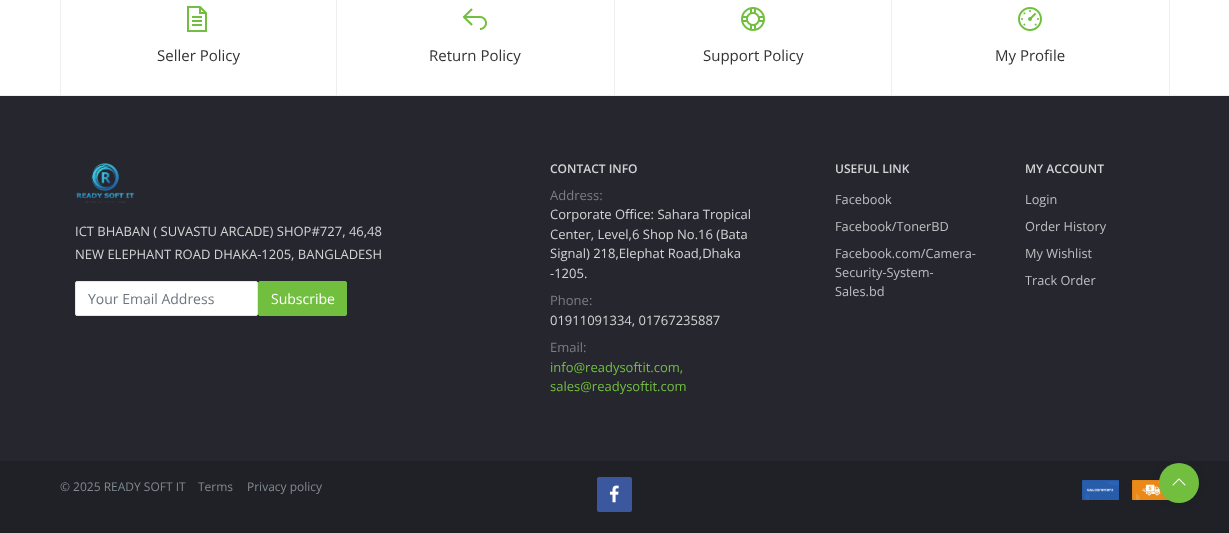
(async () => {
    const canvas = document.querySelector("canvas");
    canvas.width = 1229;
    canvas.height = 533;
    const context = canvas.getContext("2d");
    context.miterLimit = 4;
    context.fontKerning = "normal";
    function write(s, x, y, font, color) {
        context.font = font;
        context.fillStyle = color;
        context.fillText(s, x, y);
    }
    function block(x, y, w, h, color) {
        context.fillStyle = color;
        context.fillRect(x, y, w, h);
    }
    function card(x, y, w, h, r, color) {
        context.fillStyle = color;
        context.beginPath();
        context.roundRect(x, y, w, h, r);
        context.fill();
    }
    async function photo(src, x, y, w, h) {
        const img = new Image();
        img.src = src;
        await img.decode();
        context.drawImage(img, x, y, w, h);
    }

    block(0, 0, 1229, 533, "rgb(38, 38, 47)");
    block(0, 0, 1229, 95, "rgb(255, 255, 255)");
    block(0, 95, 1229, 1, "rgb(238, 238, 238)");
    block(336, 0, 1, 95, "rgb(238, 238, 238)");
    block(60, 0, 1, 95, "rgb(238, 238, 238)");
    await photo("media/1.png", 187, 6, 20, 26);
    write("Seller Policy", 157, 61, "15px Open Sans", "rgb(51, 51, 51)");
    block(614, 0, 1, 95, "rgb(238, 238, 238)");
    await photo("media/2.png", 462, 8, 25, 22);
    write("Return Policy", 429, 61, "15px Open Sans", "rgb(51, 51, 51)");
    block(891, 0, 1, 95, "rgb(238, 238, 238)");
    await photo("media/3.png", 741, 7, 24, 24);
    write("Support Policy", 703, 61, "15px Open Sans", "rgb(51, 51, 51)");
    block(1169, 0, 1, 95, "rgb(238, 238, 238)");
    await photo("media/4.png", 1018, 7, 24, 24);
    write("My Profile", 995, 61, "15px Open Sans", "rgb(51, 51, 51)");
    await photo("media/5.png", 76, 163, 59, 41);
    write("ICT BHABAN ( SUVASTU ARCADE) SHOP#727, 46,48", 75, 236, "13px Open Sans", "rgb(212, 212, 213)");
    write("NEW ELEPHANT ROAD DHAKA-1205, BANGLADESH", 75, 259, "13px Open Sans", "rgb(212, 212, 213)");
    context.fillStyle = "rgb(255, 255, 255)";
    context.beginPath();
    context.roundRect(75.5, 281.5, 182, 34, 1.5);
    context.fill();
    context.strokeStyle = "rgb(230, 230, 230)";
    context.stroke();
    write("Your Email Address", 88, 304, "14px Open Sans", "rgb(108, 117, 125)");
    context.fillStyle = "rgb(114, 191, 64)";
    context.beginPath();
    context.roundRect(258.5, 281.5, 88, 34, 1.5);
    context.fill();
    context.strokeStyle = "rgb(114, 191, 64)";
    context.stroke();
    write("Subscribe", 271, 304, "14px Open Sans", "rgb(255, 255, 255)");
    write("CONTACT INFO", 550, 173, "600 12px Open Sans", "rgb(212, 212, 213)");
    write("Address:", 550, 200, "13px Open Sans", "rgb(125, 125, 130)");
    write("Corporate Office: Sahara Tropical", 550, 219, "13px Open Sans", "rgb(212, 212, 213)");
    write("Center, Level,6 Shop No.16 (Bata", 550, 239, "13px Open Sans", "rgb(212, 212, 213)");
    write("Signal) 218,Elephat Road,Dhaka", 550, 258, "13px Open Sans", "rgb(212, 212, 213)");
    write("-1205.", 550, 278, "13px Open Sans", "rgb(212, 212, 213)");
    write("Phone:", 550, 305, "13px Open Sans", "rgb(125, 125, 130)");
    write("01911091334, 01767235887", 550, 325, "13px Open Sans", "rgb(212, 212, 213)");
    write("Email:", 550, 352, "13px Open Sans", "rgb(125, 125, 130)");
    write("info@readysoftit.com,", 550, 372, "13px Open Sans", "rgb(114, 191, 64)");
    write("sales@readysoftit.com", 550, 391, "13px Open Sans", "rgb(114, 191, 64)");
    write("USEFUL LINK", 835, 173, "600 12px Open Sans", "rgb(212, 212, 213)");
    write("Facebook", 835, 204, "12.75px Open Sans", "rgb(190, 190, 193)");
    write("Facebook/TonerBD", 835, 231, "12.75px Open Sans", "rgb(190, 190, 193)");
    write("Facebook.com/Camera-", 835, 258, "12.75px Open Sans", "rgb(190, 190, 193)");
    write("Security-System-", 835, 277, "12.75px Open Sans", "rgb(190, 190, 193)");
    write("Sales.bd", 835, 296, "12.75px Open Sans", "rgb(190, 190, 193)");
    write("MY ACCOUNT", 1025, 173, "600 12px Open Sans", "rgb(212, 212, 213)");
    write("Login", 1025, 204, "12.75px Open Sans", "rgb(190, 190, 193)");
    write("Order History", 1025, 231, "12.75px Open Sans", "rgb(190, 190, 193)");
    write("My Wishlist", 1025, 258, "12.75px Open Sans", "rgb(190, 190, 193)");
    write("Track Order", 1025, 285, "12.75px Open Sans", "rgb(190, 190, 193)");
    block(0, 461, 1229, 72, "rgb(32, 32, 39)");
    write("© 2025 READY SOFT IT", 60, 491, "12px Open Sans", "rgb(129, 138, 145)");
    write("Terms", 198, 491, "12px Open Sans", "rgb(129, 138, 145)");
    write("Privacy policy", 247, 491, "12px Open Sans", "rgb(129, 138, 145)");
    card(597, 477, 35, 35, 2, "rgb(59, 87, 157)");
    await photo("media/6.png", 609, 485, 10, 18);
    await photo("media/7.png", 1082, 480, 37, 20);
    await photo("media/8.png", 1132, 480, 37, 20);
    context.fillStyle = "rgba(0, 0, 0, 0.05)";
    context.filter = "blur(5px)";
    context.beginPath();
    context.roundRect(1159, 463, 40, 40, 20);
    context.fill();
    context.filter = "none";
    context.fillStyle = "rgb(114, 191, 64)";
    context.beginPath();
    context.arc(1179, 483, 20, 0, Math.PI * 2);
    context.fill();
    await photo("media/9.png", 1172, 478, 14, 8);
})();
